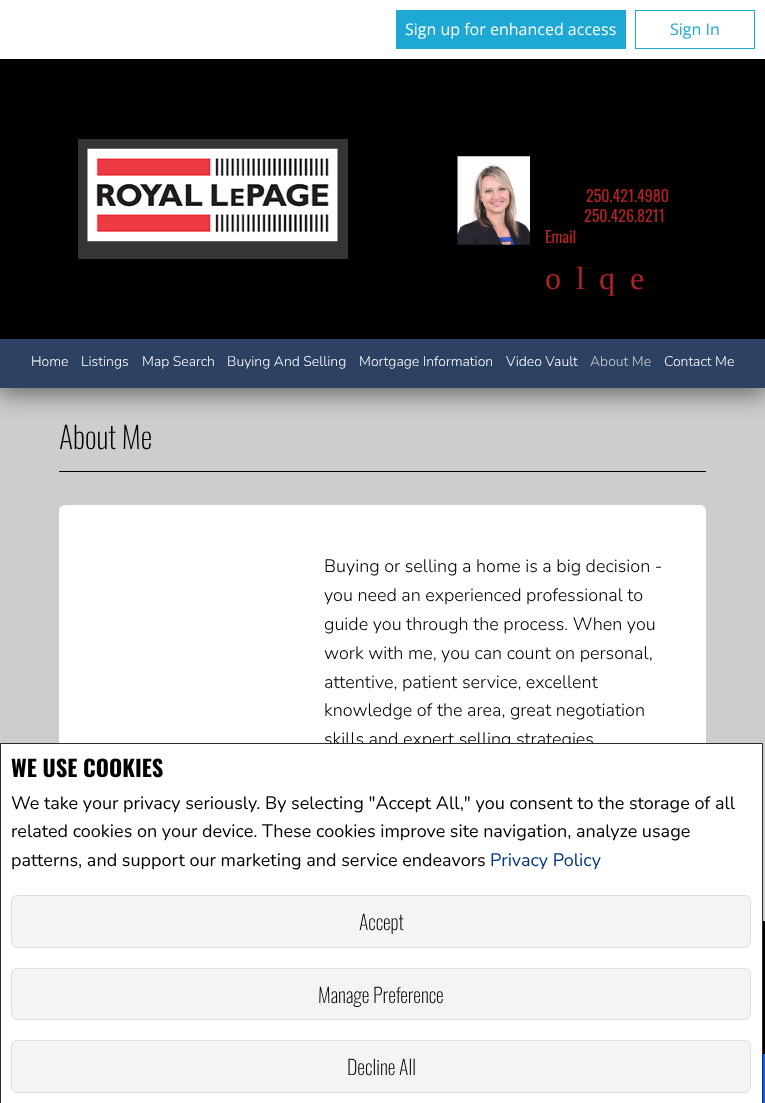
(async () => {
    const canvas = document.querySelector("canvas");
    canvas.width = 765;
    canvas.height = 1103;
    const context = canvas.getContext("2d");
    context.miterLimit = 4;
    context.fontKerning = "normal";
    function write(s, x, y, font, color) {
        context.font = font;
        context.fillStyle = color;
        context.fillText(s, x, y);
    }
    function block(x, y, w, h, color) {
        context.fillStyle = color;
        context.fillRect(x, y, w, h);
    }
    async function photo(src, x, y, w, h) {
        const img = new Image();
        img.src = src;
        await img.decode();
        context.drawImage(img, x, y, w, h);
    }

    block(0, 0, 765, 1103, "rgb(0, 0, 0)");
    block(0, 0, 765, 59, "rgb(255, 255, 255)");
    block(396, 10, 230, 39, "rgb(30, 168, 212)");
    write("Sign up for enhanced access", 405, 35, "16px Open Sans", "rgb(255, 255, 255)");
    context.strokeStyle = "rgb(30, 168, 212)";
    context.strokeRect(635.5, 10.5, 119, 38);
    write("Sign In", 670, 35, "16px Open Sans", "rgb(30, 168, 212)");
    block(78, 139, 270, 120, "rgb(53, 53, 53)");
    await photo("media/1.png", 87, 148, 251, 94);
    await photo("media/2.png", 457, 156, 73, 89);
    write("250.421.4980", 586, 202, "16px Oswald", "rgb(178, 34, 34)");
    write("250.426.8211", 584, 222, "16px Oswald", "rgb(178, 34, 34)");
    write("Email", 545, 243, "16px Oswald", "rgb(178, 34, 34)");
    write("o", 545, 289, "32px Liberation Serif", "rgb(178, 34, 34)");
    write("l", 576, 289, "32px Liberation Serif", "rgb(178, 34, 34)");
    write("q", 599, 289, "32px Liberation Serif", "rgb(178, 34, 34)");
    write("e", 630, 289, "32px Liberation Serif", "rgb(178, 34, 34)");
    block(0, 388, 765, 533, "rgb(205, 205, 205)");
    context.fillStyle = "rgba(0, 0, 0, 0.5)";
    context.filter = "blur(12.5px)";
    context.beginPath();
    context.rect(-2, 340, 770, 54);
    context.fill();
    context.filter = "none";
    block(0, 339, 765, 49, "rgb(45, 66, 98)");
    write("Home", 31, 366, "300 14px Nunito", "rgb(255, 255, 255)");
    write("Listings", 81, 366, "300 14px Nunito", "rgb(255, 255, 255)");
    write("Map Search", 142, 366, "300 14px Nunito", "rgb(255, 255, 255)");
    write("Buying And Selling", 227, 366, "300 14px Nunito", "rgb(255, 255, 255)");
    write("Mortgage Information", 359, 366, "300 14px Nunito", "rgb(255, 255, 255)");
    write("Video Vault", 506, 366, "300 14px Nunito", "rgb(255, 255, 255)");
    write("About Me", 590, 366, "300 14px Nunito", "rgb(205, 205, 205)");
    write("Contact Me", 664, 366, "300 14px Nunito", "rgb(255, 255, 255)");
    block(59, 471, 647, 1, "rgb(0, 0, 0)");
    write("About Me", 59, 449, "200 30px Oswald", "rgb(0, 0, 0)");
    context.fillStyle = "rgb(255, 255, 255)";
    context.beginPath();
    context.roundRect(59, 505, 647, 300, [6, 6, 0, 0]);
    context.fill();
    write("Buying or selling a home is a big decision -", 324, 572, "300 18px Nunito", "rgb(0, 0, 0)");
    write("you need an experienced professional to", 324, 601, "300 18px Nunito", "rgb(0, 0, 0)");
    write("guide you through the process. When you", 324, 630, "300 18px Nunito", "rgb(0, 0, 0)");
    write("work with me, you can count on personal,", 324, 659, "300 18px Nunito", "rgb(0, 0, 0)");
    write("attentive, patient service, excellent", 324, 688, "300 18px Nunito", "rgb(0, 0, 0)");
    write("knowledge of the area, great negotiation", 324, 716, "300 18px Nunito", "rgb(0, 0, 0)");
    write("skills and expert selling strategies", 324, 745, "300 18px Nunito", "rgb(0, 0, 0)");
    context.fillStyle = "rgb(255, 255, 255)";
    context.beginPath();
    context.rect(0.5, 743.5, 762, 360);
    context.fill();
    context.strokeStyle = "rgb(43, 43, 43)";
    context.stroke();
    write("WE USE COOKIES", 11, 777, "bold 22.5px Oswald", "rgb(0, 0, 0)");
    write("We take your privacy seriously. By selecting \"Accept All,\" you consent to the storage of all", 11, 809, "18px Nunito", "rgb(0, 0, 0)");
    write("related cookies on your device. These cookies improve site navigation, analyze usage", 11, 837, "18px Nunito", "rgb(0, 0, 0)");
    write("patterns, and support our marketing and service endeavors", 11, 866, "18px Nunito", "rgb(0, 0, 0)");
    write("Privacy Policy", 490, 866, "18px Nunito", "rgb(0, 53, 132)");
    context.fillStyle = "rgb(244, 244, 244)";
    context.beginPath();
    context.roundRect(11.5, 895.5, 739, 52, 5.5);
    context.fill();
    context.strokeStyle = "rgb(223, 223, 223)";
    context.stroke();
    write("Accept", 359, 930, "200 20px Oswald", "rgb(0, 0, 0)");
    context.fillStyle = "rgb(244, 244, 244)";
    context.beginPath();
    context.roundRect(11.5, 968.5, 739, 51, 5.5);
    context.fill();
    context.stroke();
    write("Manage Preference", 318, 1003, "200 20px Oswald", "rgb(0, 0, 0)");
    context.fillStyle = "rgb(244, 244, 244)";
    context.beginPath();
    context.roundRect(11.5, 1040.5, 739, 52, 5.5);
    context.fill();
    context.stroke();
    write("Decline All", 347, 1075, "200 20px Oswald", "rgb(0, 0, 0)");
    block(763, 1054, 2, 49, "rgb(1, 102, 255)");
})();
